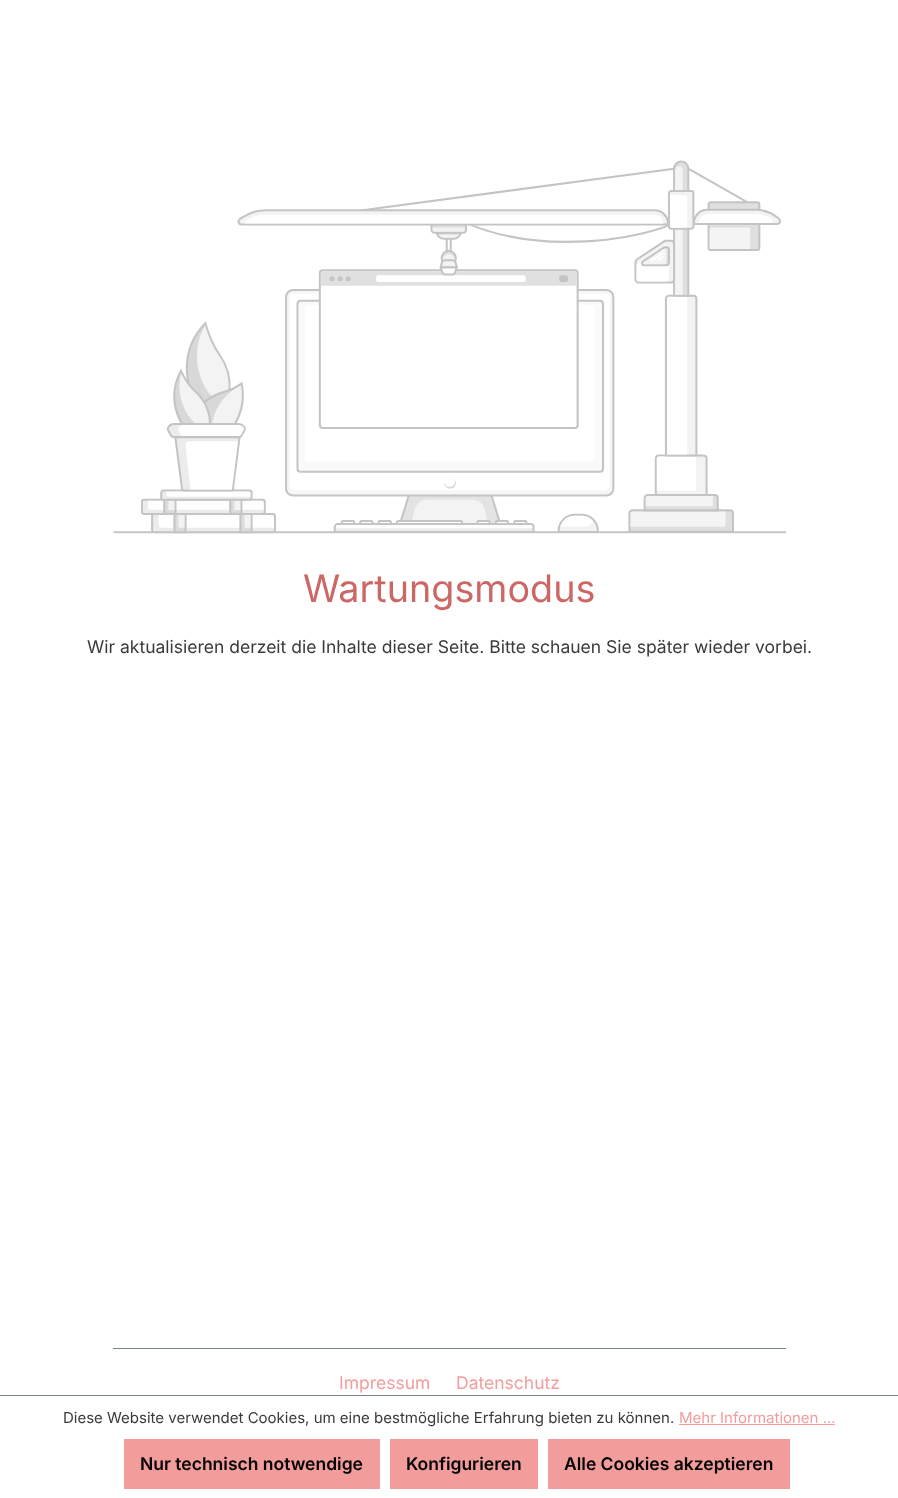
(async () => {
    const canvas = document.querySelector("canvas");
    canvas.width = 898;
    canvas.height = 1498;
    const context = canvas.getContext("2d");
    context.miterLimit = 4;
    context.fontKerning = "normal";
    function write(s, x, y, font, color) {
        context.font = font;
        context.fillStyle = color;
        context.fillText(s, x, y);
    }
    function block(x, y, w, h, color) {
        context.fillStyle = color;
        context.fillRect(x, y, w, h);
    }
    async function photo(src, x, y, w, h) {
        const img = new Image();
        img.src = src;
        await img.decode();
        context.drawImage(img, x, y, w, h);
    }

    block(0, 0, 898, 1498, "rgb(255, 255, 255)");
    await photo("media/1.png", 113, 160, 673, 374);
    write("Wartungsmodus", 303, 602, "37.75px Inter", "rgb(205, 103, 102)");
    write("Wir aktualisieren derzeit die Inhalte dieser Seite. Bitte schauen Sie später wieder vorbei.", 87, 653, "17.5px Inter", "rgb(58, 58, 58)");
    block(113, 1348, 673, 1, "rgb(121, 132, 144)");
    write("Impressum", 339, 1389, "17.5px Inter", "rgb(242, 156, 155)");
    write("Datenschutz", 456, 1389, "17.5px Inter", "rgb(242, 156, 155)");
    block(0, 1395, 898, 1, "rgb(121, 132, 144)");
    write("Diese Website verwendet Cookies, um eine bestmögliche Erfahrung bieten zu können.", 63, 1423, "15px Inter", "rgb(58, 58, 58)");
    write("Mehr Informationen ...", 679, 1423, "15px Inter", "rgb(242, 156, 155)");
    block(679, 1424, 156, 1, "rgb(242, 156, 155)");
    block(124, 1439, 256, 50, "rgb(242, 156, 155)");
    write("Nur technisch notwendige", 140, 1470, "600 17.5px Inter", "rgb(0, 0, 0)");
    block(390, 1439, 148, 50, "rgb(242, 156, 155)");
    write("Konfigurieren", 406, 1470, "600 17.5px Inter", "rgb(0, 0, 0)");
    block(548, 1439, 242, 50, "rgb(242, 156, 155)");
    write("Alle Cookies akzeptieren", 564, 1470, "600 17.5px Inter", "rgb(0, 0, 0)");
})();
